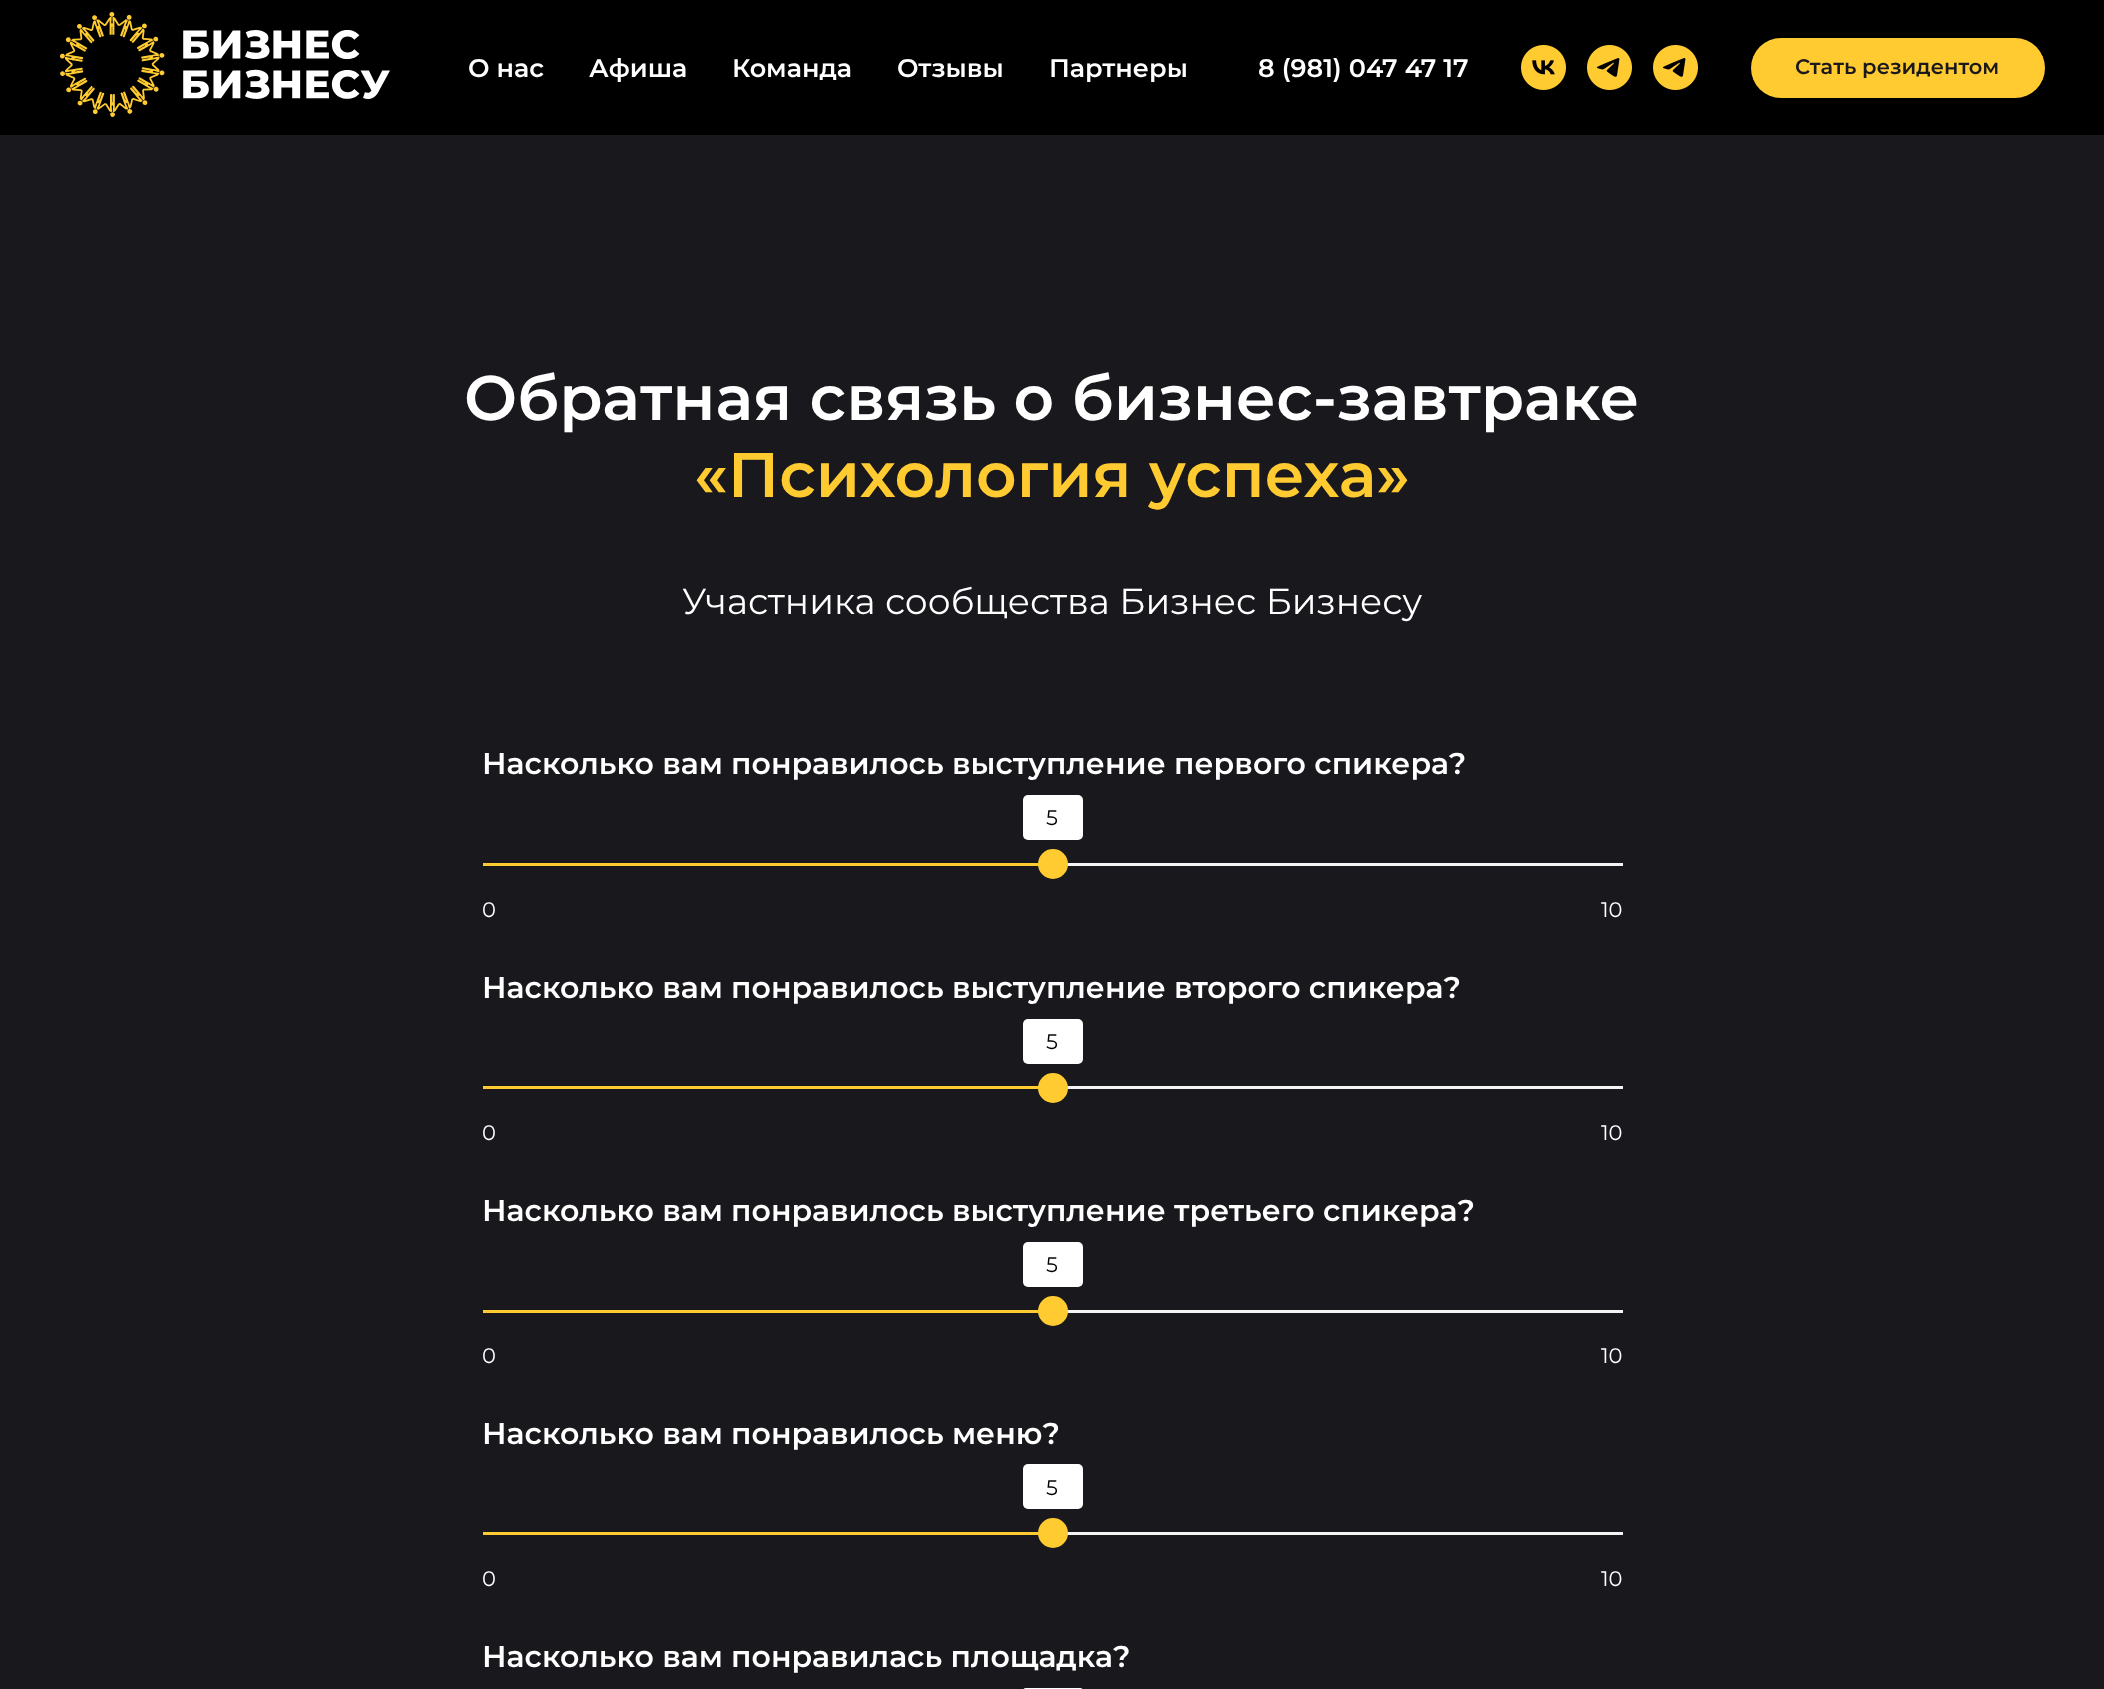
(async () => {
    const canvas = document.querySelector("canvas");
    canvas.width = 2104;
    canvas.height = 1689;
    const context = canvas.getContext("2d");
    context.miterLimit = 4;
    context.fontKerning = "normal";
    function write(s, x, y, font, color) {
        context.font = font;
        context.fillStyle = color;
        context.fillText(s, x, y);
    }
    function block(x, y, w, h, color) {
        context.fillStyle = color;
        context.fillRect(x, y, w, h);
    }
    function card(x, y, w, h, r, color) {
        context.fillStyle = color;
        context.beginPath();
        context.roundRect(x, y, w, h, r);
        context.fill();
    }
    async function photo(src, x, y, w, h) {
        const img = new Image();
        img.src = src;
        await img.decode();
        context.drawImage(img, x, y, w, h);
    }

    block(0, 0, 2104, 1689, "rgb(0, 0, 0)");
    await photo("media/1.png", 60, 12, 330, 105);
    write("О нас", 468, 77, "600 25.5px Montserrat", "rgb(255, 255, 255)");
    write("Афиша", 589, 77, "600 25.5px Montserrat", "rgb(255, 255, 255)");
    write("Команда", 732, 77, "600 25.5px Montserrat", "rgb(255, 255, 255)");
    write("Отзывы", 897, 77, "600 25.5px Montserrat", "rgb(255, 255, 255)");
    write("Партнеры", 1049, 77, "600 25.5px Montserrat", "rgb(255, 255, 255)");
    write("8 (981) 047 47 17", 1258, 77, "600 25.5px Montserrat", "rgb(255, 255, 255)");
    await photo("media/2.png", 1521, 45, 45, 45);
    await photo("media/3.png", 1587, 45, 45, 45);
    await photo("media/3.png", 1653, 45, 45, 45);
    card(1751, 38, 294, 60, 30, "rgb(255, 203, 49)");
    write("Стать резидентом", 1795, 74, "600 21px Montserrat", "rgb(25, 24, 29)");
    block(0, 135, 2104, 1554, "rgb(25, 24, 29)");
    write("Обратная связь о бизнес-завтраке", 464, 420, "600 63px Montserrat", "rgb(255, 255, 255)");
    write("«Психология успеха»", 694, 497, "600 63px Montserrat", "rgb(255, 203, 49)");
    write("Участника сообщества Бизнес Бизнесу", 682, 614, "36px Montserrat", "rgb(255, 255, 255)");
    write("Насколько вам понравилось выступление первого спикера?", 482, 774, "600 30px Montserrat", "rgb(255, 255, 255)");
    card(1023, 795, 60, 45, 5, "rgb(255, 255, 255)");
    write("5", 1046, 825, "21px Montserrat", "rgb(0, 0, 0)");
    block(483, 863, 556, 3, "rgb(255, 203, 49)");
    block(1067, 863, 556, 3, "rgb(244, 244, 244)");
    context.fillStyle = "rgb(255, 203, 49)";
    context.beginPath();
    context.arc(1053, 864, 15, 0, Math.PI * 2);
    context.fill();
    write("0", 482, 917, "21px Montserrat", "rgb(255, 255, 255)");
    write("10", 1601, 917, "21px Montserrat", "rgb(255, 255, 255)");
    write("Насколько вам понравилось выступление второго спикера?", 482, 998, "600 30px Montserrat", "rgb(255, 255, 255)");
    card(1023, 1019, 60, 45, 5, "rgb(255, 255, 255)");
    write("5", 1046, 1049, "21px Montserrat", "rgb(0, 0, 0)");
    block(483, 1086, 556, 3, "rgb(255, 203, 49)");
    block(1067, 1086, 556, 3, "rgb(244, 244, 244)");
    context.fillStyle = "rgb(255, 203, 49)";
    context.beginPath();
    context.arc(1053, 1088, 15, 0, Math.PI * 2);
    context.fill();
    write("0", 482, 1140, "21px Montserrat", "rgb(255, 255, 255)");
    write("10", 1601, 1140, "21px Montserrat", "rgb(255, 255, 255)");
    write("Насколько вам понравилось выступление третьего спикера?", 482, 1221, "600 30px Montserrat", "rgb(255, 255, 255)");
    card(1023, 1242, 60, 45, 5, "rgb(255, 255, 255)");
    write("5", 1046, 1272, "21px Montserrat", "rgb(0, 0, 0)");
    block(483, 1310, 556, 3, "rgb(255, 203, 49)");
    block(1067, 1310, 556, 3, "rgb(244, 244, 244)");
    context.fillStyle = "rgb(255, 203, 49)";
    context.beginPath();
    context.arc(1053, 1311, 15, 0, Math.PI * 2);
    context.fill();
    write("0", 482, 1363, "21px Montserrat", "rgb(255, 255, 255)");
    write("10", 1601, 1363, "21px Montserrat", "rgb(255, 255, 255)");
    write("Насколько вам понравилось меню?", 482, 1444, "600 30px Montserrat", "rgb(255, 255, 255)");
    card(1023, 1464, 60, 45, 5, "rgb(255, 255, 255)");
    write("5", 1046, 1495, "21px Montserrat", "rgb(0, 0, 0)");
    block(483, 1532, 556, 3, "rgb(255, 203, 49)");
    block(1067, 1532, 556, 3, "rgb(244, 244, 244)");
    context.fillStyle = "rgb(255, 203, 49)";
    context.beginPath();
    context.arc(1053, 1533, 15, 0, Math.PI * 2);
    context.fill();
    write("0", 482, 1586, "21px Montserrat", "rgb(255, 255, 255)");
    write("10", 1601, 1586, "21px Montserrat", "rgb(255, 255, 255)");
    write("Насколько вам понравилась площадка?", 482, 1667, "600 30px Montserrat", "rgb(255, 255, 255)");
    card(1023, 1688, 60, 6, 5, "rgb(255, 255, 255)");
})();
